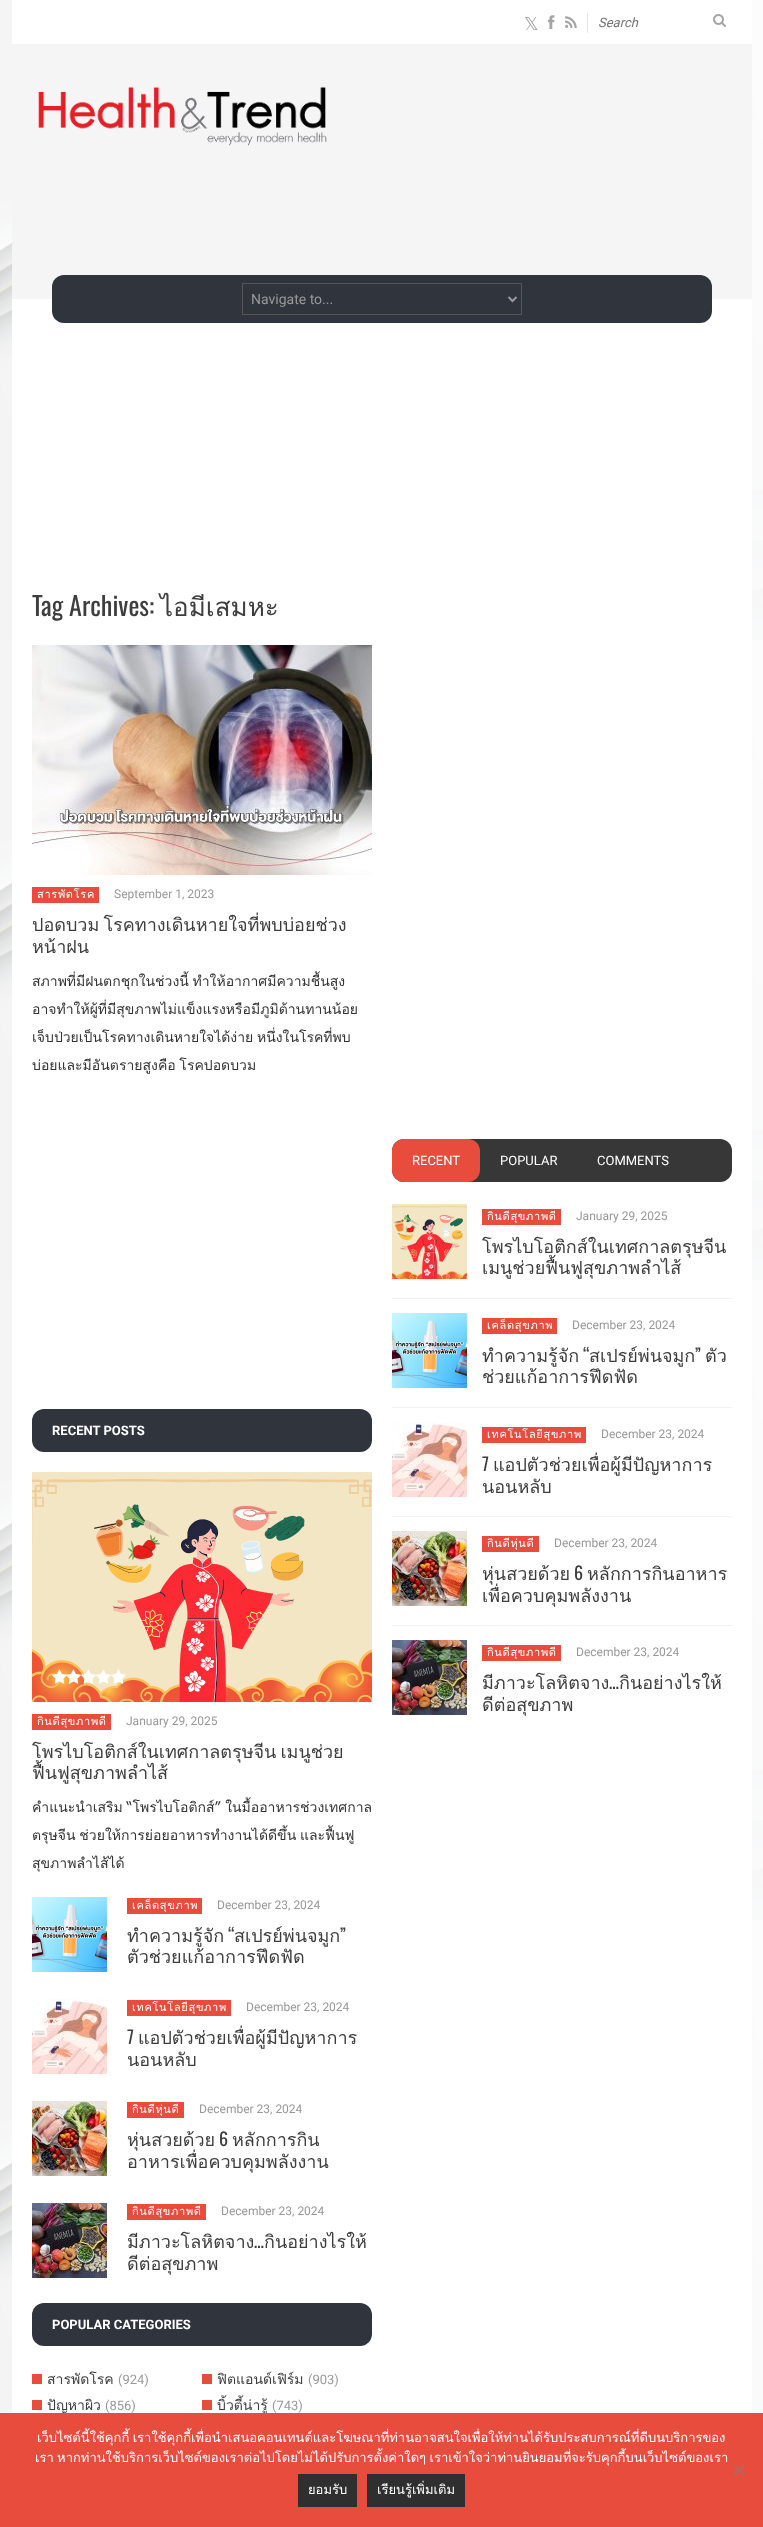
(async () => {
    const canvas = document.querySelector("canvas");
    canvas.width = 763;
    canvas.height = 2527;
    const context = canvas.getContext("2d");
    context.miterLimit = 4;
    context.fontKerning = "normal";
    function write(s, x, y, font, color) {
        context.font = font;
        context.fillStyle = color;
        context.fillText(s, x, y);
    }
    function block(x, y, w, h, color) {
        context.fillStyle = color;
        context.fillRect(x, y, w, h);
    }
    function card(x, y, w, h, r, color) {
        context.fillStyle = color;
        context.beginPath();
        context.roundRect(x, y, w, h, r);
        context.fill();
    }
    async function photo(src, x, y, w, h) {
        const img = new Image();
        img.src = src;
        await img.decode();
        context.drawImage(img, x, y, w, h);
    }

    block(0, 0, 763, 2527, "rgb(255, 255, 255)");
    await photo("media/1.png", 0, 0, 763, 2413);
    block(12, 44, 740, 255, "rgb(245, 245, 245)");
    block(12, 0, 740, 44, "rgb(255, 255, 255)");
    write("𝕏", 524, 30, "18px DejaVu Sans", "rgb(165, 165, 165)");
    await photo("media/2.png", 548, 15, 7, 15);
    await photo("media/3.png", 565, 16, 12, 12);
    block(587, 13, 1, 20, "rgb(231, 231, 231)");
    write("Search", 598, 27, "italic 13px Roboto", "rgb(117, 117, 117)");
    await photo("media/4.png", 713, 14, 13, 13);
    await photo("media/5.png", 38, 86, 289, 60);
    block(12, 299, 740, 2114, "rgb(255, 255, 255)");
    card(52, 275, 660, 48, 12, "rgb(47, 52, 61)");
    context.strokeStyle = "rgb(85, 85, 85)";
    context.strokeRect(242.5, 283.5, 279, 31);
    context.beginPath();
    context.moveTo(508.5, 297);
    context.lineTo(512.5, 301);
    context.lineTo(516.5, 297);
    context.strokeStyle = "rgb(153, 153, 153)";
    context.lineWidth = 2;
    context.stroke();
    write("Navigate to...", 251, 304, "14px Roboto", "rgb(153, 153, 153)");
    write("Tag Archives:", 32, 616, "26px Oswald", "rgb(62, 62, 62)");
    write("ไอมีเสมหะ", 160, 616, "26px Loma", "rgb(62, 62, 62)");
    await photo("media/6.png", 32, 645, 340, 230);
    block(32, 887, 67, 16, "rgb(231, 76, 60)");
    context.letterSpacing = "0.7px";
    write("สารพัดโรค", 37, 898, "11px Loma", "rgb(255, 255, 255)");
    context.letterSpacing = "0px";
    write("September 1, 2023", 114, 898, "12px Roboto", "rgb(153, 153, 153)");
    context.wordSpacing = "-2px";
    write("ปอดบวม โรคทางเดินหายใจที่พบบ่อยช่วง", 32, 931, "18px Loma", "rgb(62, 62, 62)");
    context.wordSpacing = "0px";
    write("หน้าฝน", 32, 953, "18px Loma", "rgb(62, 62, 62)");
    context.wordSpacing = "-1px";
    write("สภาพที่มีฝนตกชุกในช่วงนี้ ทำให้อากาศมีความชื้นสูง", 32, 986, "14px Loma", "rgb(52, 52, 52)");
    context.wordSpacing = "0px";
    write("อาจทำให้ผู้ที่มีสุขภาพไม่แข็งแรงหรือมีภูมิต้านทานน้อย", 32, 1014, "14px Loma", "rgb(52, 52, 52)");
    context.save();
    context.beginPath();
    context.rect(32, 645, 700, 454);
    context.clip();
    context.wordSpacing = "-1px";
    write("เจ็บป่วยเป็นโรคทางเดินหายใจได้ง่าย หนึ่งในโรคที่พบ", 32, 1042, "14px Loma", "rgb(52, 52, 52)");
    write("บ่อยและมีอันตรายสูงคือ โรคปอดบวม", 32, 1070, "14px Loma", "rgb(52, 52, 52)");
    context.restore();
    card(32, 1409, 340, 43, 12, "rgb(47, 52, 61)");
    write("RECENT POSTS", 52, 1435, "bold 13px Roboto", "rgb(255, 255, 255)");
    await photo("media/7.png", 32, 1472, 340, 230);
    await photo("media/8.png", 52, 1669, 15, 15);
    await photo("media/9.png", 66, 1669, 15, 15);
    await photo("media/10.png", 81, 1669, 15, 15);
    await photo("media/11.png", 96, 1669, 15, 15);
    await photo("media/12.png", 111, 1669, 15, 15);
    block(32, 1714, 79, 16, "rgb(231, 76, 60)");
    context.letterSpacing = "0.7px";
    write("กินดีสุขภาพดี", 37, 1725, "11px Loma", "rgb(255, 255, 255)");
    context.letterSpacing = "0px";
    write("January 29, 2025", 126, 1725, "12px Roboto", "rgb(153, 153, 153)");
    context.wordSpacing = "-2px";
    write("โพรไบโอติกส์ในเทศกาลตรุษจีน เมนูช่วย", 32, 1758, "18px Loma", "rgb(62, 62, 62)");
    context.save();
    context.beginPath();
    context.rect(32, 1409, 340, 875);
    context.clip();
    context.wordSpacing = "0px";
    write("ฟื้นฟูสุขภาพลำไส้", 32, 1779, "18px Loma", "rgb(62, 62, 62)");
    context.wordSpacing = "-1px";
    write("คำแนะนำเสริม “โพรไบโอติกส์” ในมื้ออาหารช่วงเทศกาล", 32, 1812, "14px Loma", "rgb(52, 52, 52)");
    context.restore();
    context.wordSpacing = "-1px";
    write("ตรุษจีน ช่วยให้การย่อยอาหารทำงานได้ดีขึ้น และฟื้นฟู", 32, 1840, "14px Loma", "rgb(52, 52, 52)");
    context.save();
    context.beginPath();
    context.rect(32, 1409, 340, 875);
    context.clip();
    context.wordSpacing = "0px";
    write("สุขภาพลำไส้ได้", 32, 1868, "14px Loma", "rgb(52, 52, 52)");
    context.restore();
    await photo("media/13.png", 32, 1897, 75, 75);
    block(127, 1898, 75, 16, "rgb(231, 76, 60)");
    context.letterSpacing = "0.7px";
    context.wordSpacing = "0px";
    write("เคล็ดสุขภาพ", 132, 1909, "11px Loma", "rgb(255, 255, 255)");
    context.letterSpacing = "0px";
    write("December 23, 2024", 217, 1909, "12px Roboto", "rgb(153, 153, 153)");
    write("ทำความรู้จัก", 127, 1942, "18px Loma", "rgb(62, 62, 62)");
    write("“", 228, 1942, "18px Oswald", "rgb(62, 62, 62)");
    write("สเปรย์พ่นจมูก", 234, 1942, "18px Loma", "rgb(62, 62, 62)");
    write("”", 340, 1942, "18px Oswald", "rgb(62, 62, 62)");
    write("ตัวช่วยแก้อาการฟึดฟัด", 127, 1963, "18px Loma", "rgb(62, 62, 62)");
    await photo("media/14.png", 32, 1999, 75, 75);
    block(127, 2000, 104, 16, "rgb(231, 76, 60)");
    context.letterSpacing = "0.7px";
    write("เทคโนโลยีสุขภาพ", 132, 2011, "11px Loma", "rgb(255, 255, 255)");
    context.letterSpacing = "0px";
    write("December 23, 2024", 246, 2011, "12px Roboto", "rgb(153, 153, 153)");
    write("7", 127, 2044, "18px Oswald", "rgb(62, 62, 62)");
    write("แอปตัวช่วยเพื่อผู้มีปัญหาการ", 138, 2044, "18px Loma", "rgb(62, 62, 62)");
    write("นอนหลับ", 127, 2066, "18px Loma", "rgb(62, 62, 62)");
    await photo("media/15.png", 32, 2101, 75, 75);
    block(127, 2102, 57, 16, "rgb(231, 76, 60)");
    context.letterSpacing = "0.7px";
    write("กินดีหุ่นดี", 132, 2113, "11px Loma", "rgb(255, 255, 255)");
    context.letterSpacing = "0px";
    write("December 23, 2024", 199, 2113, "12px Roboto", "rgb(153, 153, 153)");
    write("หุ่นสวยด้วย", 127, 2146, "18px Loma", "rgb(62, 62, 62)");
    write("6", 219, 2146, "18px Oswald", "rgb(62, 62, 62)");
    write("หลักการกิน", 232, 2146, "18px Loma", "rgb(62, 62, 62)");
    write("อาหารเพื่อควบคุมพลังงาน", 127, 2168, "18px Loma", "rgb(62, 62, 62)");
    await photo("media/16.png", 32, 2203, 75, 75);
    block(127, 2204, 79, 16, "rgb(231, 76, 60)");
    context.letterSpacing = "0.7px";
    write("กินดีสุขภาพดี", 132, 2215, "11px Loma", "rgb(255, 255, 255)");
    context.letterSpacing = "0px";
    write("December 23, 2024", 221, 2215, "12px Roboto", "rgb(153, 153, 153)");
    write("มีภาวะโลหิตจาง", 127, 2248, "18px Loma", "rgb(62, 62, 62)");
    write("…", 254, 2248, "18px Oswald", "rgb(62, 62, 62)");
    write("กินอย่างไรให้", 264, 2248, "18px Loma", "rgb(62, 62, 62)");
    write("ดีต่อสุขภาพ", 127, 2270, "18px Loma", "rgb(62, 62, 62)");
    card(392, 1139, 340, 43, 12, "rgb(55, 55, 55)");
    card(392, 1139, 88, 43, 12, "rgb(231, 76, 60)");
    write("RECENT", 412, 1165, "13px Roboto", "rgb(255, 255, 255)");
    write("POPULAR", 500, 1165, "13px Roboto", "rgb(255, 255, 255)");
    write("COMMENTS", 597, 1165, "13px Roboto", "rgb(255, 255, 255)");
    block(392, 1298, 340, 1, "rgb(242, 242, 242)");
    await photo("media/17.png", 392, 1204, 75, 75);
    block(482, 1209, 79, 16, "rgb(231, 76, 60)");
    context.letterSpacing = "0.7px";
    write("กินดีสุขภาพดี", 487, 1220, "11px Loma", "rgb(255, 255, 255)");
    context.letterSpacing = "0px";
    write("January 29, 2025", 576, 1220, "12px Roboto", "rgb(153, 153, 153)");
    write("โพรไบโอติกส์ในเทศกาลตรุษจีน", 482, 1253, "18px Loma", "rgb(62, 62, 62)");
    write("เมนูช่วยฟื้นฟูสุขภาพลำไส้", 482, 1274, "18px Loma", "rgb(62, 62, 62)");
    block(392, 1407, 340, 1, "rgb(242, 242, 242)");
    await photo("media/13.png", 392, 1313, 75, 75);
    block(482, 1318, 75, 16, "rgb(231, 76, 60)");
    context.letterSpacing = "0.7px";
    write("เคล็ดสุขภาพ", 487, 1329, "11px Loma", "rgb(255, 255, 255)");
    context.letterSpacing = "0px";
    write("December 23, 2024", 572, 1329, "12px Roboto", "rgb(153, 153, 153)");
    write("ทำความรู้จัก", 482, 1362, "18px Loma", "rgb(62, 62, 62)");
    write("“", 583, 1362, "18px Oswald", "rgb(62, 62, 62)");
    write("สเปรย์พ่นจมูก", 589, 1362, "18px Loma", "rgb(62, 62, 62)");
    write("”", 695, 1362, "18px Oswald", "rgb(62, 62, 62)");
    write("ตัว", 705, 1362, "18px Loma", "rgb(62, 62, 62)");
    write("ช่วยแก้อาการฟึดฟัด", 482, 1383, "18px Loma", "rgb(62, 62, 62)");
    block(392, 1516, 340, 1, "rgb(242, 242, 242)");
    await photo("media/14.png", 392, 1422, 75, 75);
    block(482, 1427, 104, 16, "rgb(231, 76, 60)");
    context.letterSpacing = "0.7px";
    write("เทคโนโลยีสุขภาพ", 487, 1438, "11px Loma", "rgb(255, 255, 255)");
    context.letterSpacing = "0px";
    write("December 23, 2024", 601, 1438, "12px Roboto", "rgb(153, 153, 153)");
    write("7", 482, 1471, "18px Oswald", "rgb(62, 62, 62)");
    write("แอปตัวช่วยเพื่อผู้มีปัญหาการ", 493, 1471, "18px Loma", "rgb(62, 62, 62)");
    write("นอนหลับ", 482, 1493, "18px Loma", "rgb(62, 62, 62)");
    block(392, 1625, 340, 1, "rgb(242, 242, 242)");
    await photo("media/15.png", 392, 1531, 75, 75);
    block(482, 1536, 57, 16, "rgb(231, 76, 60)");
    context.letterSpacing = "0.7px";
    write("กินดีหุ่นดี", 487, 1547, "11px Loma", "rgb(255, 255, 255)");
    context.letterSpacing = "0px";
    write("December 23, 2024", 554, 1547, "12px Roboto", "rgb(153, 153, 153)");
    write("หุ่นสวยด้วย", 482, 1580, "18px Loma", "rgb(62, 62, 62)");
    write("6", 574, 1580, "18px Oswald", "rgb(62, 62, 62)");
    write("หลักการกินอาหาร", 587, 1580, "18px Loma", "rgb(62, 62, 62)");
    write("เพื่อควบคุมพลังงาน", 482, 1602, "18px Loma", "rgb(62, 62, 62)");
    await photo("media/16.png", 392, 1640, 75, 75);
    block(482, 1645, 79, 16, "rgb(231, 76, 60)");
    context.letterSpacing = "0.7px";
    write("กินดีสุขภาพดี", 487, 1656, "11px Loma", "rgb(255, 255, 255)");
    context.letterSpacing = "0px";
    write("December 23, 2024", 576, 1656, "12px Roboto", "rgb(153, 153, 153)");
    write("มีภาวะโลหิตจาง", 482, 1689, "18px Loma", "rgb(62, 62, 62)");
    write("…", 609, 1689, "18px Oswald", "rgb(62, 62, 62)");
    write("กินอย่างไรให้", 619, 1689, "18px Loma", "rgb(62, 62, 62)");
    write("ดีต่อสุขภาพ", 482, 1711, "18px Loma", "rgb(62, 62, 62)");
    card(32, 2303, 340, 43, 12, "rgb(47, 52, 61)");
    write("POPULAR CATEGORIES", 52, 2329, "bold 13px Roboto", "rgb(255, 255, 255)");
    block(32, 2374, 10, 10, "rgb(231, 76, 60)");
    write("สารพัดโรค", 47, 2384, "14px Loma", "rgb(62, 62, 62)");
    write("(924)", 118, 2384, "13px Roboto", "rgb(153, 153, 153)");
    block(202, 2374, 10, 10, "rgb(231, 76, 60)");
    write("ฟิตแอนด์เฟิร์ม", 217, 2384, "14px Loma", "rgb(62, 62, 62)");
    write("(903)", 308, 2384, "13px Roboto", "rgb(153, 153, 153)");
    block(32, 2400, 10, 10, "rgb(231, 76, 60)");
    write("ปัญหาผิว", 47, 2410, "14px Loma", "rgb(62, 62, 62)");
    write("(856)", 105, 2410, "13px Roboto", "rgb(153, 153, 153)");
    block(202, 2400, 10, 10, "rgb(231, 76, 60)");
    write("บิ้วตี้น่ารู้", 217, 2410, "14px Loma", "rgb(62, 62, 62)");
    write("(743)", 272, 2410, "13px Roboto", "rgb(153, 153, 153)");
    block(0, 2413, 763, 114, "rgb(231, 76, 60)");
    context.wordSpacing = "-1px";
    write("เว็บไซต์นี้ใช้คุกกี้ เราใช้คุกกี้เพื่อนำเสนอคอนเทนต์และโฆษณาที่ท่านอาจสนใจเพื่อให้ท่านได้รับประสบการณ์ที่ดีบนบริการของ", 37, 2442, "13px Loma", "rgb(255, 255, 255)");
    write("เรา หากท่านใช้บริการเว็บไซต์ของเราต่อไปโดยไม่ได้ปรับการตั้งค่าใดๆ เราเข้าใจว่าท่านยินยอมที่จะรับคุกกี้บนเว็บไซต์ของเรา", 35, 2462, "13px Loma", "rgb(255, 255, 255)");
    context.fillStyle = "rgb(180, 102, 94)";
    context.beginPath();
    context.moveTo(743.5, 2464.5);
    context.lineTo(745, 2466);
    context.lineTo(734.5, 2476.5);
    context.lineTo(733, 2475);
    context.closePath();
    context.fill();
    context.beginPath();
    context.moveTo(733, 2466);
    context.lineTo(734.5, 2464.5);
    context.lineTo(745, 2475);
    context.lineTo(743.5, 2476.5);
    context.closePath();
    context.fill();
    block(298, 2474, 59, 33, "rgb(47, 47, 47)");
    context.wordSpacing = "0px";
    write("ยอมรับ", 308, 2494, "13px Loma", "rgb(255, 255, 255)");
    block(367, 2474, 98, 33, "rgb(47, 47, 47)");
    write("เรียนรู้เพิ่มเติม", 377, 2494, "13px Loma", "rgb(255, 255, 255)");
})();
